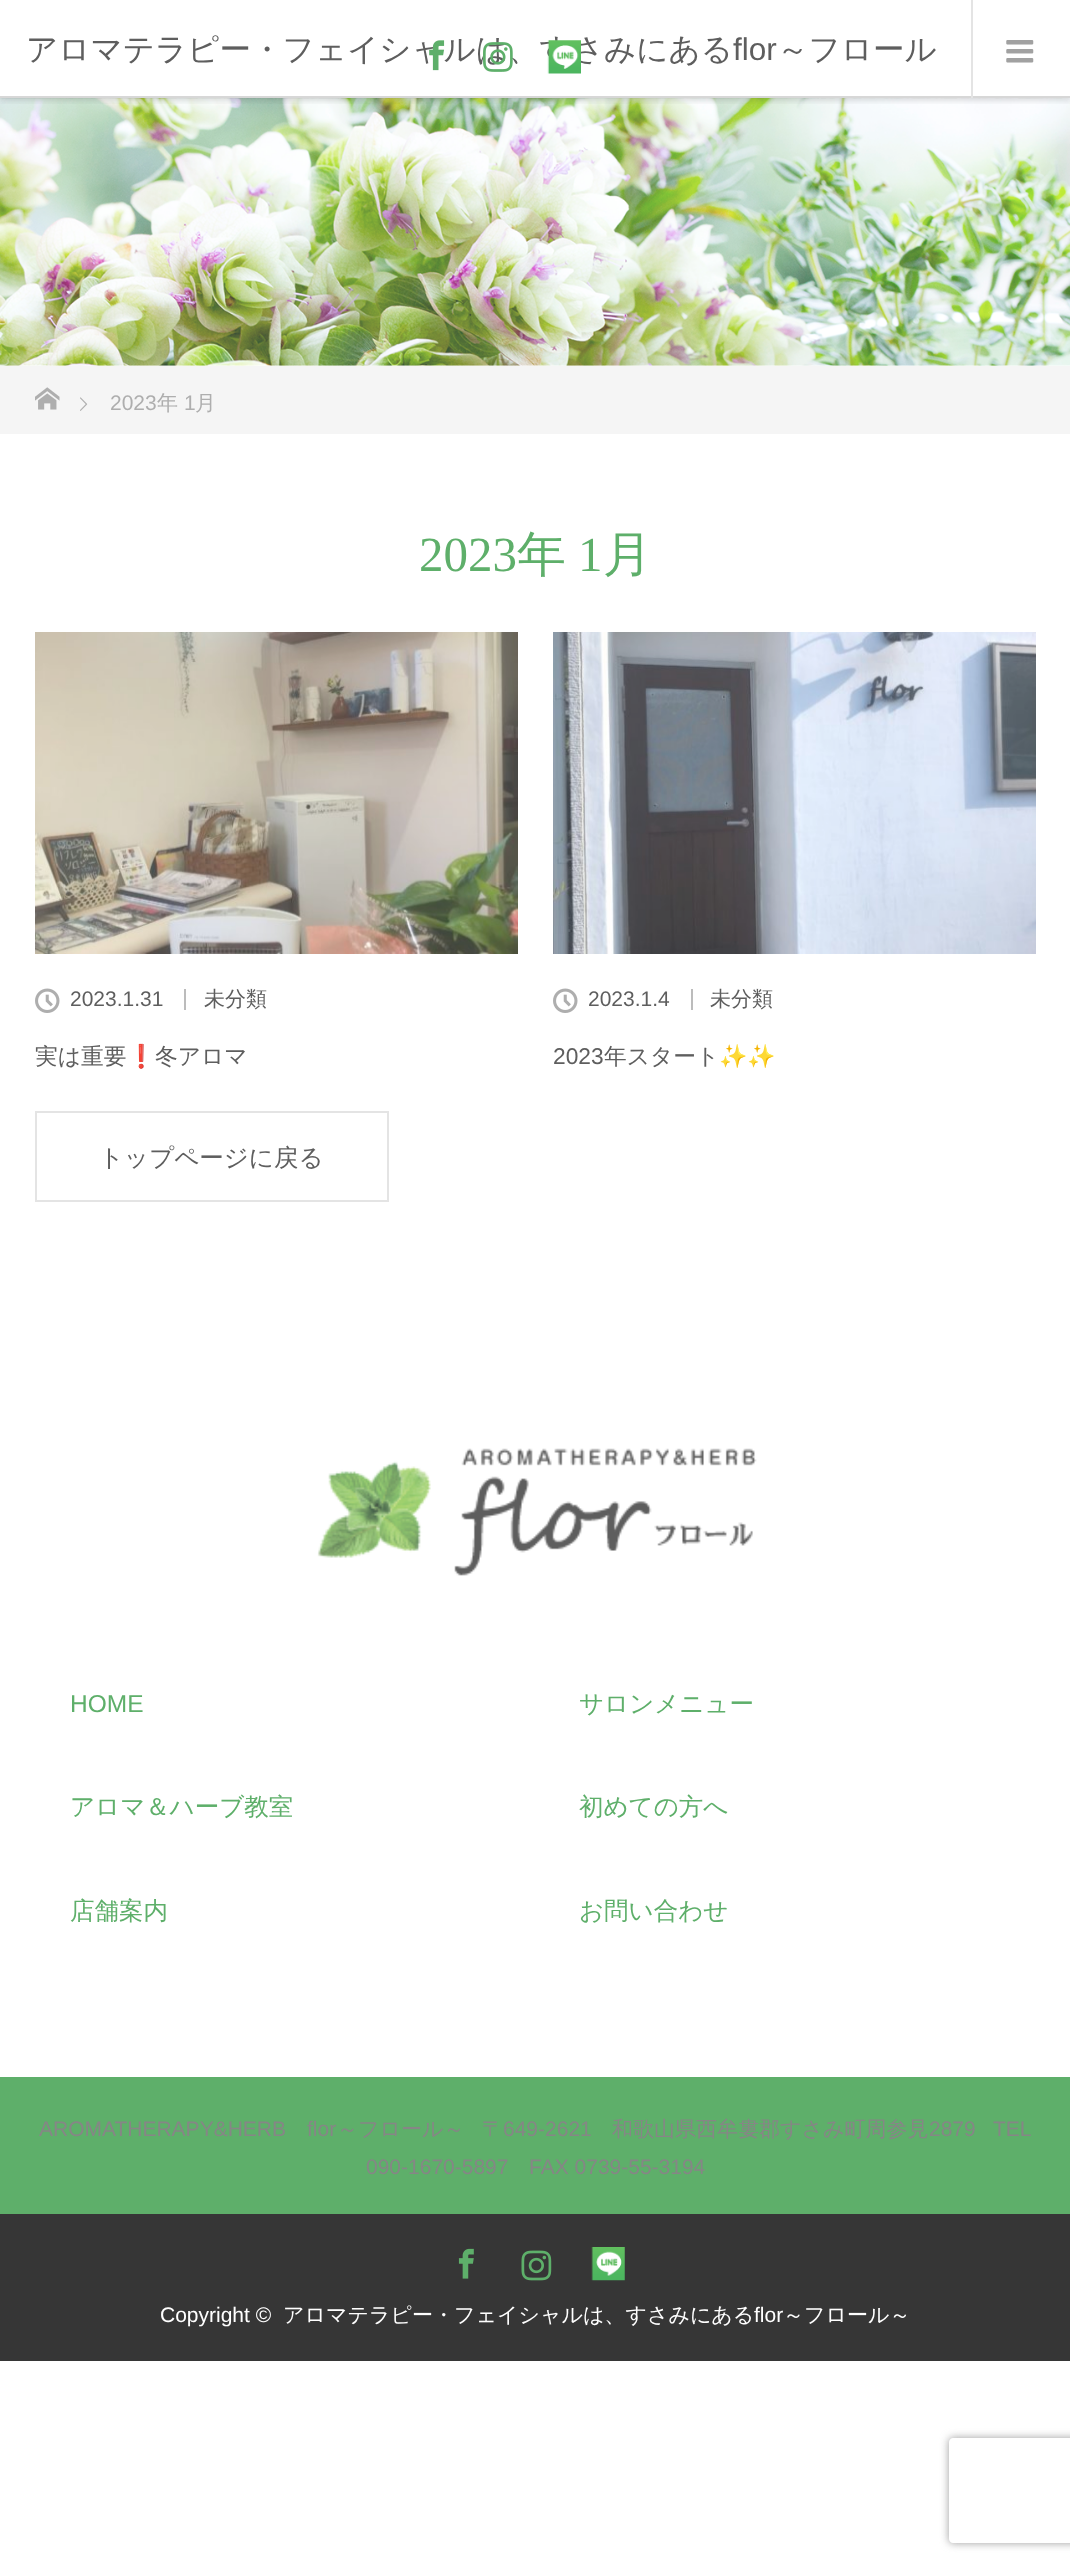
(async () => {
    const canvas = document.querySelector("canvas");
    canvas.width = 1070;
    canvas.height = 2566;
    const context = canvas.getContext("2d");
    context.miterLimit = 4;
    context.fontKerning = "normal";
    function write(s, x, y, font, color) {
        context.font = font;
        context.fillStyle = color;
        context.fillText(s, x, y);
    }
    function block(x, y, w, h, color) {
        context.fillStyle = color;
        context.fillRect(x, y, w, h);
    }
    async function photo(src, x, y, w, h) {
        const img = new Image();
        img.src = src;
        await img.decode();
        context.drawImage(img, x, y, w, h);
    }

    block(0, 0, 1070, 2566, "rgb(255, 255, 255)");
    await photo("media/5.png", 0, 98, 1070, 268);
    context.save();
    context.beginPath();
    context.rect(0, 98, 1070, 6);
    context.clip();
    context.fillStyle = "rgba(54, 54, 54, 0.2)";
    context.filter = "blur(3.5px)";
    context.beginPath();
    context.rect(0, 2, 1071, 98);
    context.fill();
    context.filter = "none";
    context.restore();
    block(0, 96, 1070, 2, "rgb(215, 215, 215)");
    write("アロマテラピー・フェイシャルは、すさみにある", 26, 60, "500 31.5px WenQuanYi Zen Hei", "rgb(94, 94, 94)");
    write("flor", 733, 60, "31.5px Liberation Sans", "rgb(94, 94, 94)");
    write("～フロール", 777, 60, "500 31.5px WenQuanYi Zen Hei", "rgb(94, 94, 94)");
    await photo("media/1.png", 429, 40, 16, 31);
    await photo("media/2.png", 483, 42, 30, 30);
    await photo("media/3.png", 547, 40, 34, 34);
    block(971, 0, 2, 98, "rgb(228, 228, 228)");
    await photo("media/4.png", 1006, 40, 28, 23);
    block(0, 366, 1070, 68, "rgb(245, 245, 245)");
    await photo("media/6.png", 35, 387, 25, 23);
    await photo("media/7.png", 80, 397, 8, 14);
    write("2023", 110, 410, "21px Liberation Sans", "rgb(174, 174, 174)");
    write("年", 157, 410, "500 21px WenQuanYi Zen Hei", "rgb(174, 174, 174)");
    write("1", 184, 410, "21px Liberation Sans", "rgb(174, 174, 174)");
    write("月", 195, 410, "500 21px WenQuanYi Zen Hei", "rgb(174, 174, 174)");
    write("2023", 419, 571, "49px Liberation Serif", "rgb(94, 175, 106)");
    write("年", 517, 571, "500 49px WenQuanYi Zen Hei", "rgb(94, 175, 106)");
    write("1", 578, 571, "49px Liberation Serif", "rgb(94, 175, 106)");
    write("月", 603, 571, "500 49px WenQuanYi Zen Hei", "rgb(94, 175, 106)");
    await photo("media/8.png", 35, 632, 483, 322);
    await photo("media/9.png", 35, 988, 25, 25);
    write("2023.1.31", 70, 1006, "21px Liberation Sans", "rgb(94, 94, 94)");
    block(184, 989, 2, 21, "rgb(188, 188, 188)");
    write("未分類", 204, 1006, "500 21px WenQuanYi Zen Hei", "rgb(94, 94, 94)");
    write("実は重要", 35, 1064, "500 22.75px WenQuanYi Zen Hei", "rgb(94, 94, 94)");
    write("❗️", 127, 1064, "22.75px Noto Color Emoji", "rgb(94, 94, 94)");
    write("冬アロマ", 155, 1064, "500 22.75px WenQuanYi Zen Hei", "rgb(94, 94, 94)");
    await photo("media/10.png", 553, 632, 483, 322);
    await photo("media/9.png", 553, 988, 25, 25);
    write("2023.1.4", 588, 1006, "21px Liberation Sans", "rgb(94, 94, 94)");
    block(691, 989, 2, 21, "rgb(188, 188, 188)");
    write("未分類", 710, 1006, "500 21px WenQuanYi Zen Hei", "rgb(94, 94, 94)");
    write("2023", 553, 1064, "22.75px Liberation Sans", "rgb(94, 94, 94)");
    write("年スタート", 604, 1064, "500 22.75px WenQuanYi Zen Hei", "rgb(94, 94, 94)");
    write("✨✨", 719, 1064, "22.75px Noto Color Emoji", "rgb(94, 94, 94)");
    context.strokeStyle = "rgb(228, 228, 228)";
    context.lineWidth = 2;
    context.strokeRect(36, 1112, 352, 89);
    write("トップページに戻る", 99, 1166, "500 24.5px WenQuanYi Zen Hei", "rgb(94, 94, 94)");
    await photo("media/11.png", 317, 1448, 440, 128);
    write("HOME", 70, 1712, "24.5px Liberation Sans", "rgb(94, 175, 106)");
    write("サロンメニュー", 579, 1712, "500 24.5px WenQuanYi Zen Hei", "rgb(94, 175, 106)");
    write("アロマ＆ハーブ教室", 70, 1815, "500 24.5px WenQuanYi Zen Hei", "rgb(94, 175, 106)");
    write("初めての方へ", 579, 1815, "500 24.5px WenQuanYi Zen Hei", "rgb(94, 175, 106)");
    write("店舗案内", 70, 1919, "500 24.5px WenQuanYi Zen Hei", "rgb(94, 175, 106)");
    write("お問い合わせ", 579, 1919, "500 24.5px WenQuanYi Zen Hei", "rgb(94, 175, 106)");
    block(0, 2077, 1070, 137, "rgb(94, 175, 106)");
    write("AROMATHERAPY&HERB", 39, 2136, "21px Liberation Sans", "rgb(134, 134, 134)");
    write("flor", 307, 2136, "21px Liberation Sans", "rgb(134, 134, 134)");
    write("～フロール～", 337, 2136, "500 21px WenQuanYi Zen Hei", "rgb(134, 134, 134)");
    write("〒", 482, 2136, "500 21px WenQuanYi Zen Hei", "rgb(134, 134, 134)");
    write("649-2621", 503, 2136, "21px Liberation Sans", "rgb(134, 134, 134)");
    write("和歌山県西牟婁郡すさみ町周参見", 612, 2136, "500 21px WenQuanYi Zen Hei", "rgb(134, 134, 134)");
    write("2879", 929, 2136, "21px Liberation Sans", "rgb(134, 134, 134)");
    write("TEL", 993, 2136, "21px Liberation Sans", "rgb(134, 134, 134)");
    write("090-1670-5897", 366, 2174, "21px Liberation Sans", "rgb(134, 134, 134)");
    write("FAX 0739-55-3194", 529, 2174, "21px Liberation Sans", "rgb(134, 134, 134)");
    block(0, 2214, 1070, 147, "rgb(54, 54, 54)");
    await photo("media/12.png", 458, 2248, 16, 31);
    await photo("media/13.png", 521, 2250, 31, 31);
    await photo("media/14.png", 591, 2247, 34, 34);
    write("Copyright ©", 160, 2322, "21px Liberation Sans", "rgb(255, 255, 255)");
    write("アロマテラピー・フェイシャルは、すさみにある", 283, 2322, "500 21px WenQuanYi Zen Hei", "rgb(255, 255, 255)");
    write("flor", 754, 2322, "21px Liberation Sans", "rgb(255, 255, 255)");
    write("～フロール～", 783, 2322, "500 21px WenQuanYi Zen Hei", "rgb(255, 255, 255)");
    context.save();
    context.beginPath();
    context.moveTo(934, 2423);
    context.lineTo(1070, 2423);
    context.lineTo(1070, 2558);
    context.lineTo(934, 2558);
    context.closePath();
    context.moveTo(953, 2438);
    context.lineTo(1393, 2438);
    context.bezierCurveTo(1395, 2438, 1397, 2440, 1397, 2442);
    context.lineTo(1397, 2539);
    context.bezierCurveTo(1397, 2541, 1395, 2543, 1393, 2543);
    context.lineTo(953, 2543);
    context.bezierCurveTo(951, 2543, 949, 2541, 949, 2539);
    context.lineTo(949, 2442);
    context.bezierCurveTo(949, 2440, 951, 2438, 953, 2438);
    context.closePath();
    context.clip("evenodd");
    context.fillStyle = "rgb(155, 155, 155)";
    context.filter = "blur(4.5px)";
    context.beginPath();
    context.roundRect(949, 2438, 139, 105, 4);
    context.fill();
    context.filter = "none";
    context.restore();
})();
